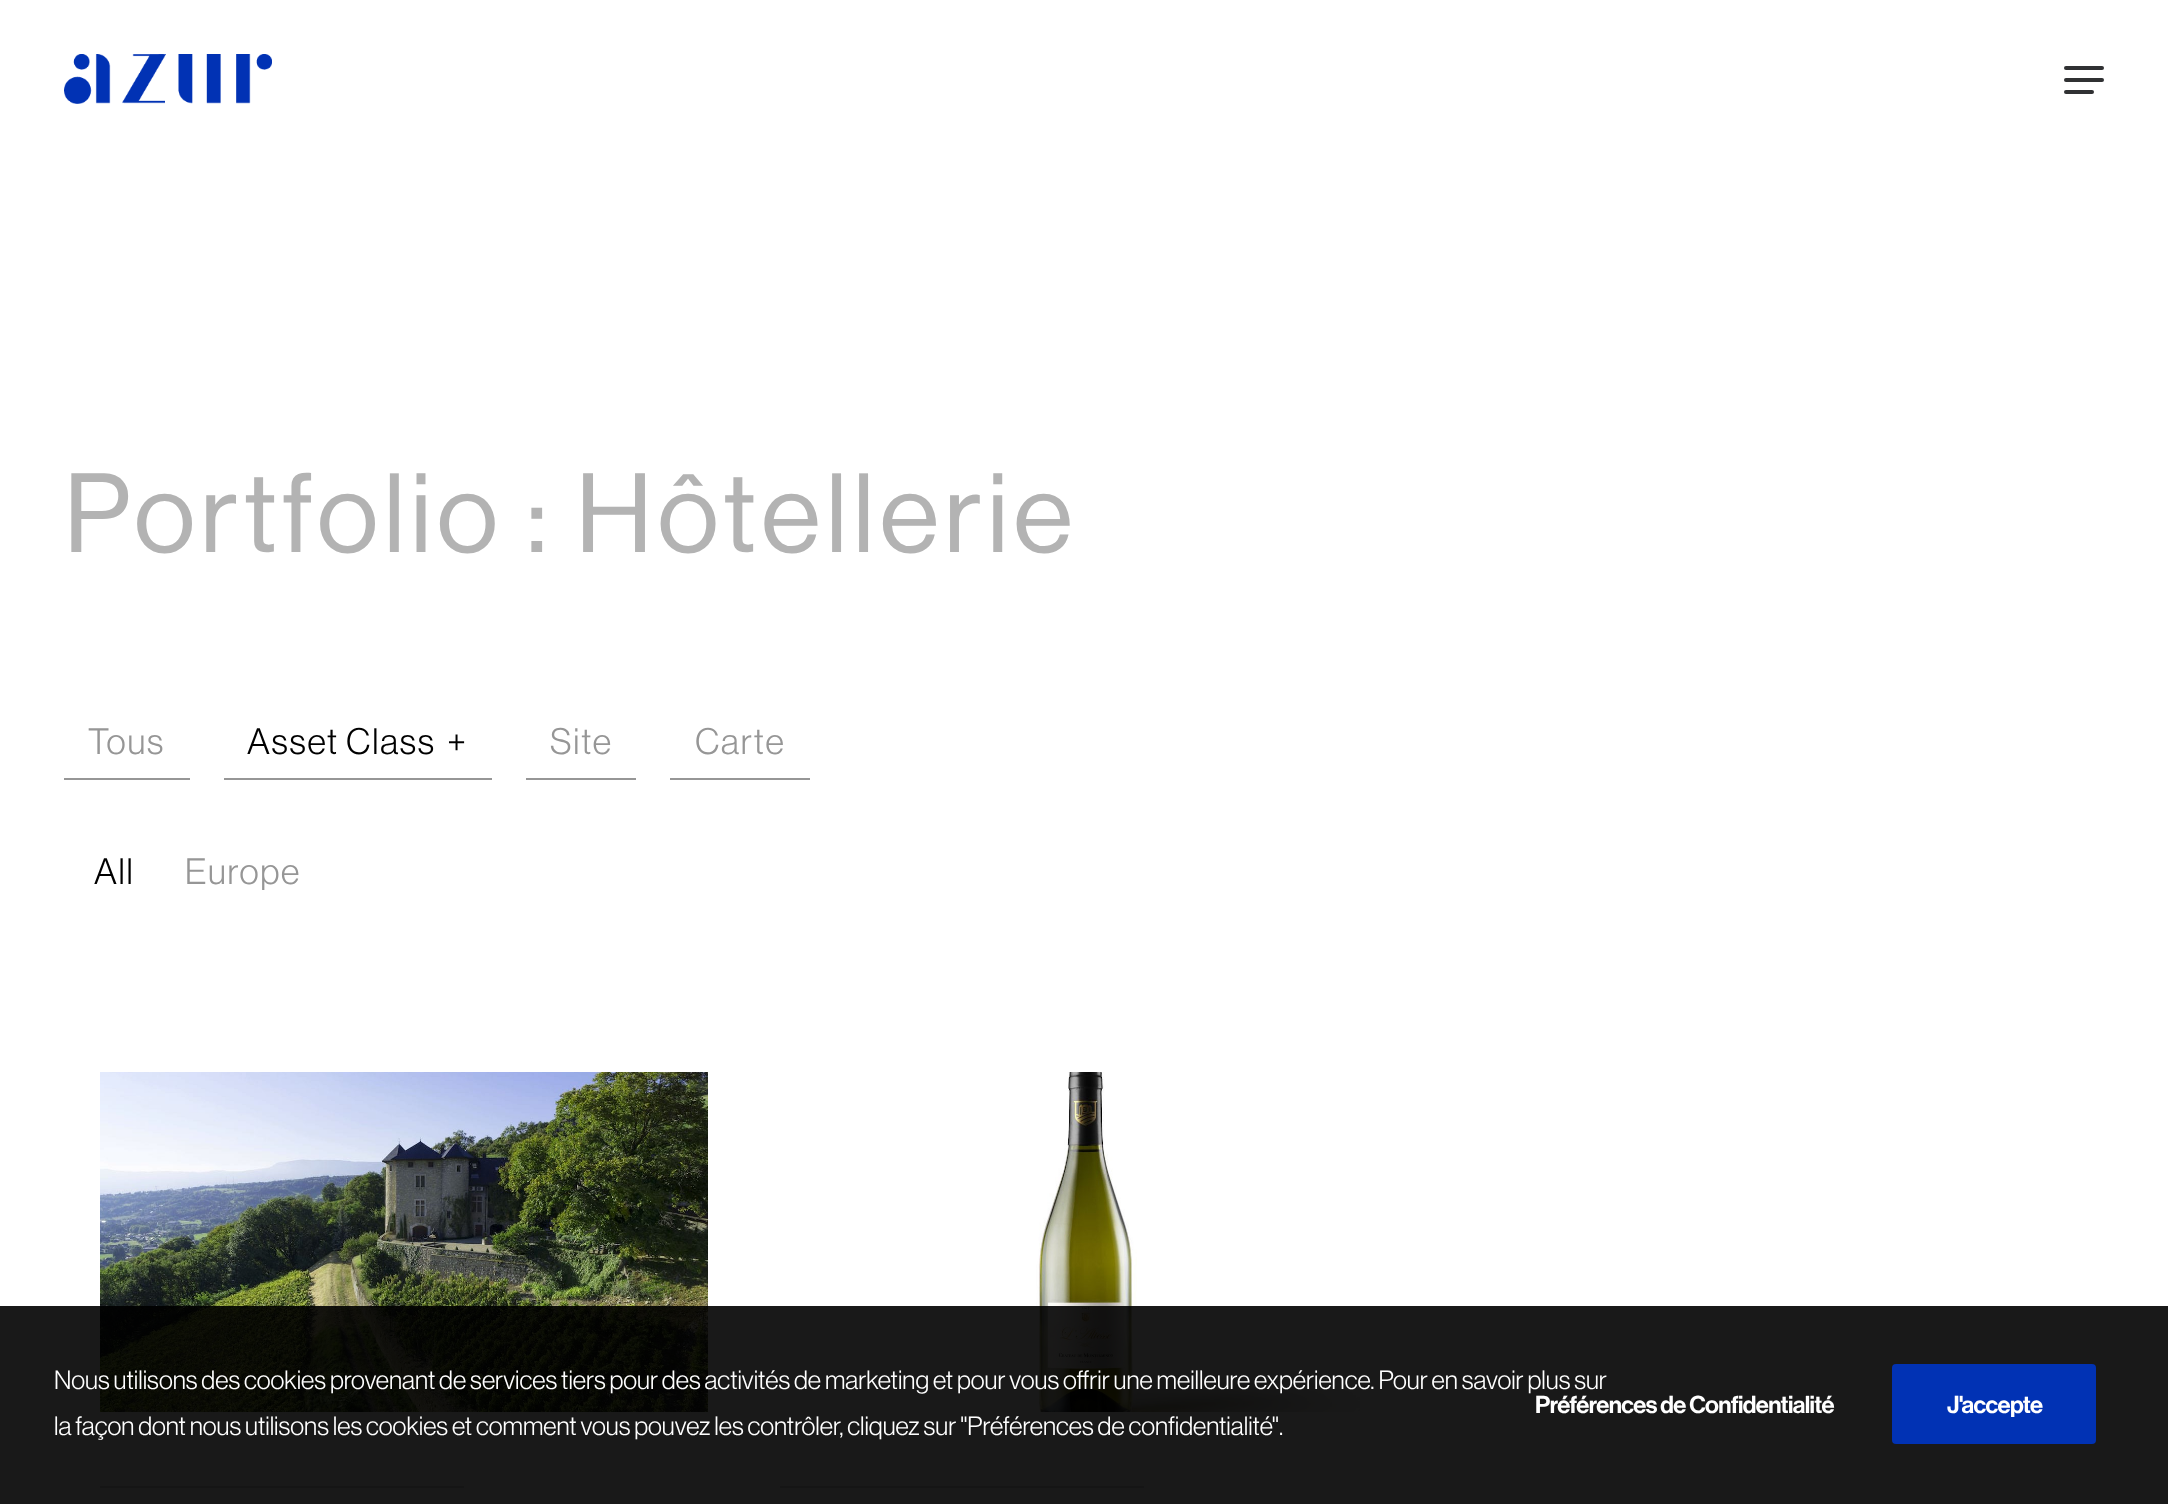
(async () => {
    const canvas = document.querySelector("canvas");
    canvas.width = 2168;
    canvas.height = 1504;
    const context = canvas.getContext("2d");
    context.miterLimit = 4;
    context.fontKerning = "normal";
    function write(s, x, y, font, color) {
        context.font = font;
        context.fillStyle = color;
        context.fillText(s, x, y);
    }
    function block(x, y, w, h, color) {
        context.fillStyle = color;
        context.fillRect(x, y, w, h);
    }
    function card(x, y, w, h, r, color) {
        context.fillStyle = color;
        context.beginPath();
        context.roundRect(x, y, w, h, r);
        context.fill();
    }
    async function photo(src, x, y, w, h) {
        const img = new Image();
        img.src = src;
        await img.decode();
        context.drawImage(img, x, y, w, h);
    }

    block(0, 0, 2168, 1504, "rgb(255, 255, 255)");
    await photo("media/1.png", 64, 54, 208, 50);
    card(2064, 78, 40, 4, 2, "rgb(48, 49, 51)");
    card(2064, 66, 40, 4, 2, "rgb(48, 49, 51)");
    card(2064, 90, 30, 4, 2, "rgb(48, 49, 51)");
    context.letterSpacing = "5.5px";
    write("Portfolio : Hôtellerie", 64, 552, "500 110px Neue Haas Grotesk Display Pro", "rgb(179, 179, 179)");
    block(64, 778, 126, 2, "rgb(150, 150, 150)");
    context.letterSpacing = "1.75px";
    write("Tous", 88, 754, "36px Neue Haas Grotesk Display Pro", "rgb(150, 150, 150)");
    block(224, 778, 268, 2, "rgb(150, 150, 150)");
    write("Asset Class", 247, 754, "36px Neue Haas Grotesk Display Pro", "rgb(0, 0, 0)");
    write("+", 447, 754, "36px Neue Haas Grotesk Display Pro", "rgb(0, 0, 0)");
    block(526, 778, 110, 2, "rgb(150, 150, 150)");
    write("Site", 550, 754, "36px Neue Haas Grotesk Display Pro", "rgb(150, 150, 150)");
    block(670, 778, 140, 2, "rgb(150, 150, 150)");
    write("Carte", 695, 754, "36px Neue Haas Grotesk Display Pro", "rgb(150, 150, 150)");
    write("All", 94, 884, "36px Neue Haas Grotesk Display Pro", "rgb(0, 0, 0)");
    write("Europe", 185, 884, "36px Neue Haas Grotesk Display Pro", "rgb(150, 150, 150)");
    await photo("media/2.png", 100, 1072, 608, 340);
    block(100, 1486, 364, 2, "rgb(211, 211, 211)");
    await photo("media/3.png", 1036, 1072, 347, 340);
    block(780, 1486, 364, 2, "rgb(211, 211, 211)");
    block(0, 1306, 2168, 198, "rgba(0, 0, 0, 0.9)");
    context.letterSpacing = "0px";
    write("Nous utilisons des cookies provenant de services tiers pour des activités de marketing et pour vous offrir une meilleure expérience. Pour en savoir plus sur", 54, 1389, "26px Neue Haas Grotesk Display Pro", "rgb(255, 255, 255)");
    write("la façon dont nous utilisons les cookies et comment vous pouvez les contrôler, cliquez sur \"Préférences de confidentialité\".", 54, 1435, "26px Neue Haas Grotesk Display Pro", "rgb(255, 255, 255)");
    context.letterSpacing = "-0.6px";
    write("Préférences de Confidentialité", 1535, 1413, "500 24px 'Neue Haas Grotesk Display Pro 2'", "rgb(255, 255, 255)");
    card(1892, 1364, 204, 80, 4, "rgb(1, 50, 180)");
    write("J'accepte", 1947, 1413, "500 24px 'Neue Haas Grotesk Display Pro 2'", "rgb(255, 255, 255)");
})();
